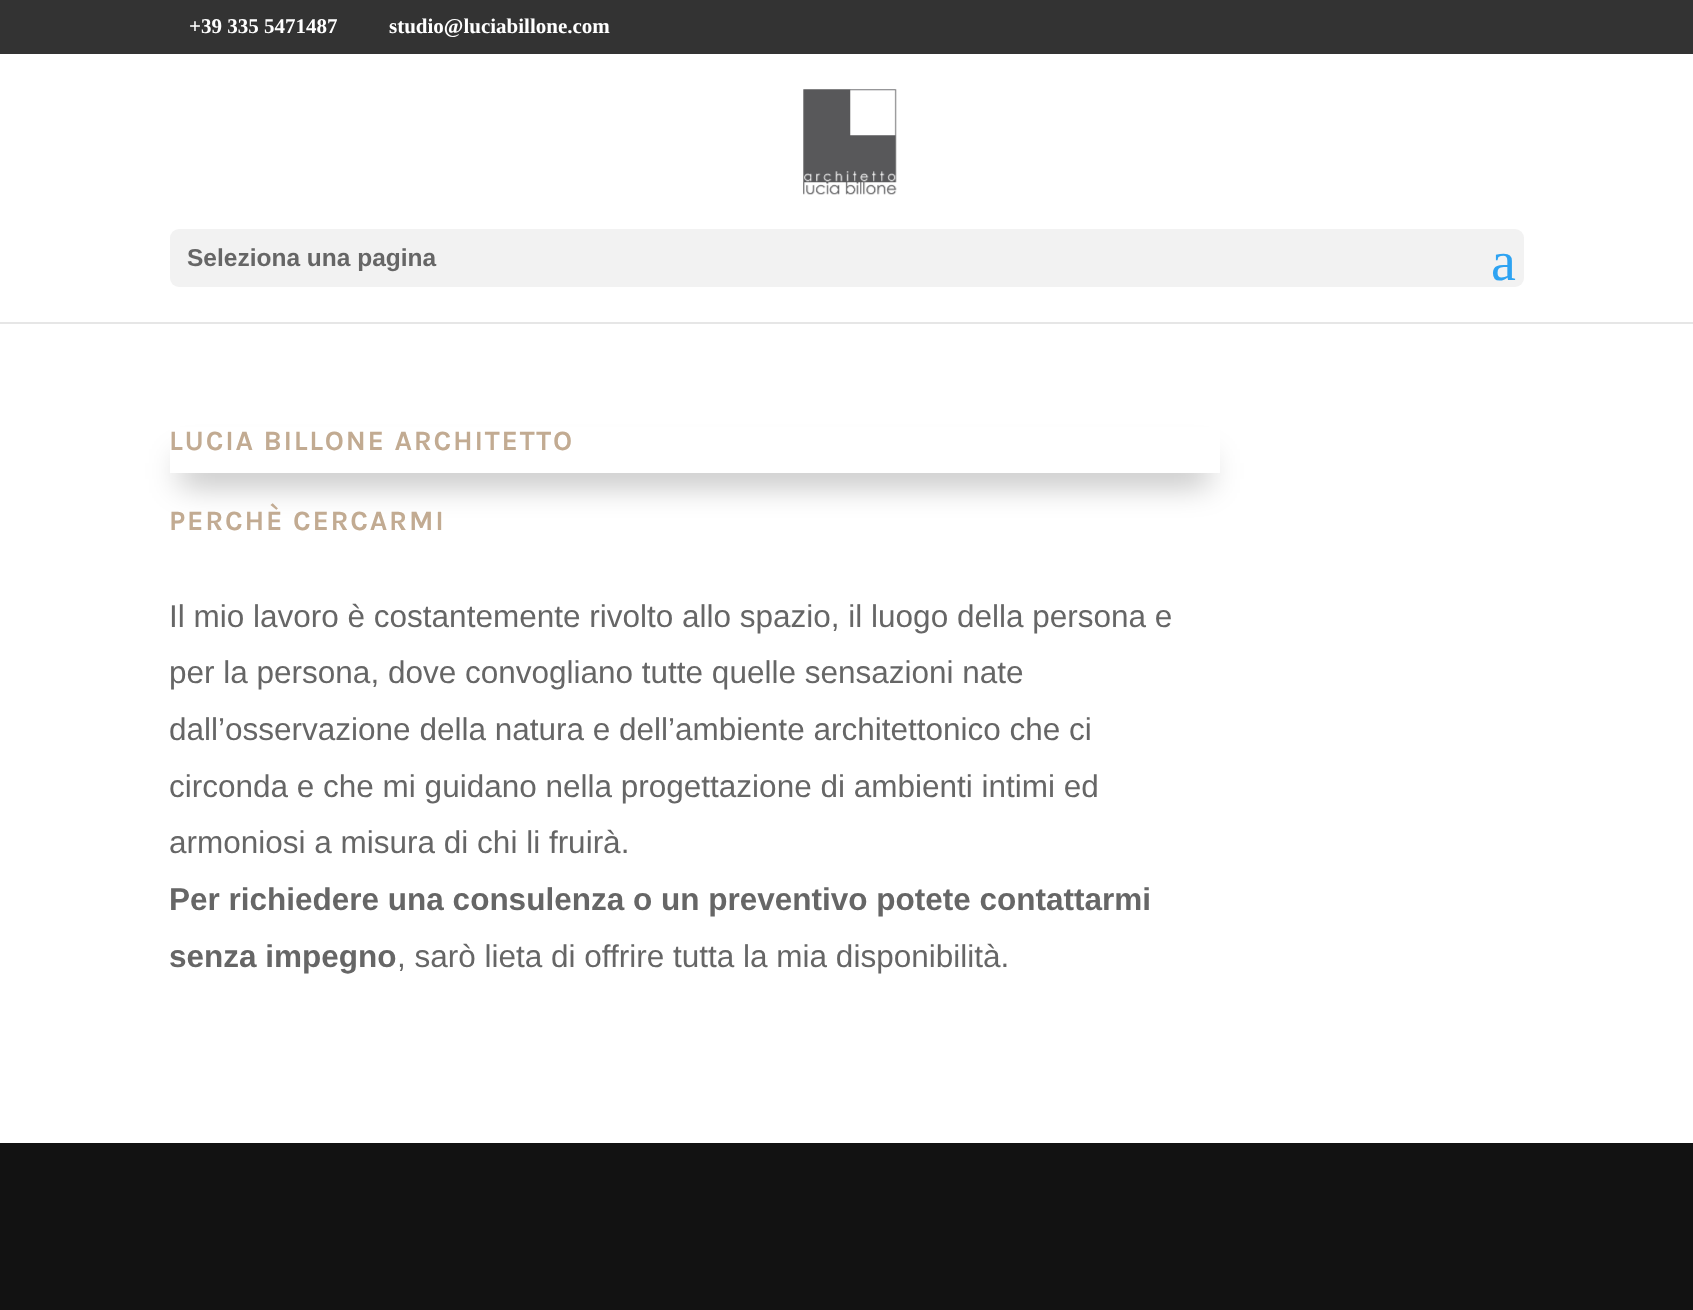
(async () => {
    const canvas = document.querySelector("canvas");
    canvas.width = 1693;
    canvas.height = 1310;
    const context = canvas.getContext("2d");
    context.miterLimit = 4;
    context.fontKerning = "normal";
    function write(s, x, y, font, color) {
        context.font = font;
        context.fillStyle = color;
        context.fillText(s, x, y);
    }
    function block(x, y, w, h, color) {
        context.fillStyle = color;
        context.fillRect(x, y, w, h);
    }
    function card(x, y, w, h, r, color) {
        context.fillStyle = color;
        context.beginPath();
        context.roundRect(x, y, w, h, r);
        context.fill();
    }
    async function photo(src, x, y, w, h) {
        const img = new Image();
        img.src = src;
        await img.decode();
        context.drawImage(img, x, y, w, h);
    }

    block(0, 0, 1693, 1310, "rgb(255, 255, 255)");
    block(0, 0, 1693, 54, "rgb(51, 51, 51)");
    write("+39 335 5471487", 189, 33, "bold 21px Liberation Serif", "rgb(255, 255, 255)");
    write("studio@luciabillone.com", 389, 33, "bold 21px Liberation Serif", "rgb(255, 255, 255)");
    block(0, 322, 1693, 2, "rgb(230, 230, 230)");
    await photo("media/1.png", 803, 89, 94, 106);
    card(170, 229, 1354, 58, 9, "rgb(242, 242, 242)");
    write("Seleziona una pagina", 187, 266, "bold 24.5px Liberation Sans", "rgb(102, 102, 102)");
    write("a", 1491, 280, "56px Liberation Serif", "rgb(46, 163, 242)");
    context.save();
    context.beginPath();
    context.moveTo(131, 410);
    context.lineTo(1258, 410);
    context.lineTo(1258, 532);
    context.lineTo(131, 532);
    context.closePath();
    context.moveTo(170, 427);
    context.lineTo(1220, 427);
    context.lineTo(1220, 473);
    context.lineTo(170, 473);
    context.closePath();
    context.clip("evenodd");
    context.fillStyle = "rgba(0, 0, 0, 0.3)";
    context.filter = "blur(16px)";
    context.beginPath();
    context.rect(180, 459, 1029, 24);
    context.fill();
    context.filter = "none";
    context.restore();
    context.letterSpacing = "1.75px";
    write("LUCIA BILLONE ARCHITETTO", 169, 450, "bold 28px Karla", "rgb(194, 171, 146)");
    write("PERCHÈ CERCARMI", 169, 530, "bold 28px Karla", "rgb(194, 171, 146)");
    context.letterSpacing = "0px";
    write("Il mio lavoro è costantemente rivolto allo spazio, il luogo della persona e", 169, 627, "31.5px Liberation Sans", "rgb(102, 102, 102)");
    write("per la persona, dove convogliano tutte quelle sensazioni nate", 169, 683, "31.5px Liberation Sans", "rgb(102, 102, 102)");
    write("dall’osservazione della natura e dell’ambiente architettonico che ci", 169, 740, "31.5px Liberation Sans", "rgb(102, 102, 102)");
    write("circonda e che mi guidano nella progettazione di ambienti intimi ed", 169, 797, "31.5px Liberation Sans", "rgb(102, 102, 102)");
    write("armoniosi a misura di chi li fruirà.", 169, 853, "31.5px Liberation Sans", "rgb(102, 102, 102)");
    write("Per richiedere una consulenza o un preventivo potete contattarmi", 169, 910, "bold 31.5px Liberation Sans", "rgb(102, 102, 102)");
    write("senza impegno", 169, 967, "bold 31.5px Liberation Sans", "rgb(102, 102, 102)");
    write(", sarò lieta di offrire tutta la mia disponibilità.", 397, 967, "31.5px Liberation Sans", "rgb(102, 102, 102)");
    block(0, 1143, 1693, 167, "rgb(18, 18, 18)");
})();
